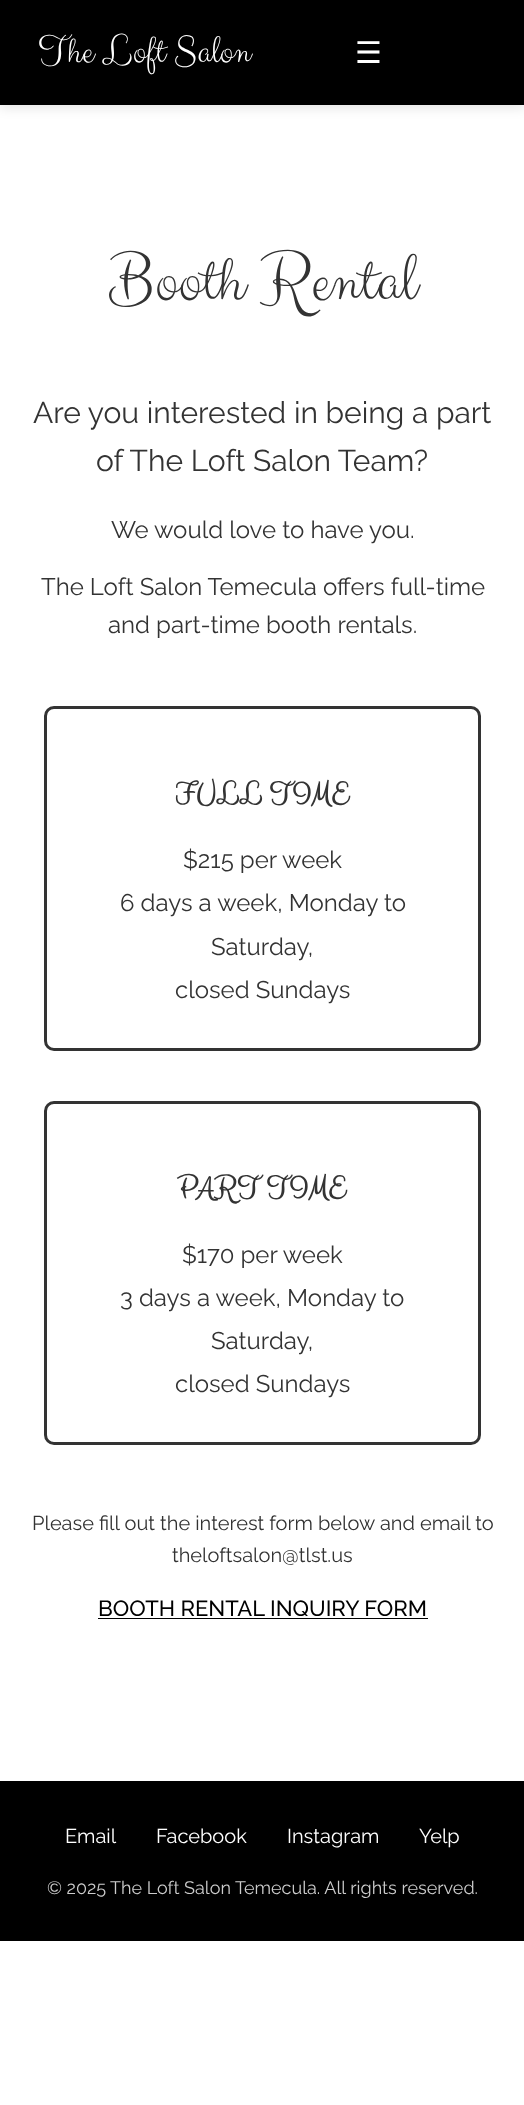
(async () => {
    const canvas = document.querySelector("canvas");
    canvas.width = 524;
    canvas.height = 2105;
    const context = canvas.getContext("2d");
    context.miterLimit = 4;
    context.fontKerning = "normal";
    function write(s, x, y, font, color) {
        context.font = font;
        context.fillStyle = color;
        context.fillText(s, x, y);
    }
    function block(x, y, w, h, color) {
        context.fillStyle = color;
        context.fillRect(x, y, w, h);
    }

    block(0, 0, 524, 2105, "rgb(255, 255, 255)");
    context.fillStyle = "rgba(0, 0, 0, 0.1)";
    context.filter = "blur(6px)";
    context.beginPath();
    context.rect(0, 3, 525, 105);
    context.fill();
    context.filter = "none";
    block(0, 0, 524, 105, "rgb(0, 0, 0)");
    write("The Loft Salon", 38, 63, "40px Clicker Script", "rgb(255, 255, 255)");
    write("☰", 355, 63, "30px DejaVu Sans", "rgb(255, 255, 255)");
    write("Booth Rental", 109, 301, "70px Clicker Script", "rgb(51, 51, 51)");
    write("Are you interested in being a part", 33, 423, "30px Raleway", "rgb(51, 51, 51)");
    write("of The Loft Salon Team?", 96, 471, "30px Raleway", "rgb(51, 51, 51)");
    write("We would love to have you.", 111, 538, "24px Raleway", "rgb(51, 51, 51)");
    write("The Loft Salon Temecula offers full-time", 41, 595, "24px Raleway", "rgb(51, 51, 51)");
    write("and part-time booth rentals.", 108, 633, "24px Raleway", "rgb(51, 51, 51)");
    context.beginPath();
    context.roundRect(45.5, 707.5, 434, 342, 8.5);
    context.strokeStyle = "rgb(51, 51, 51)";
    context.lineWidth = 3;
    context.stroke();
    write("FULL TIME", 175, 803, "bold 30px Clicker Script", "rgb(51, 51, 51)");
    write("$215 per week", 183, 868, "24px Raleway", "rgb(51, 51, 51)");
    write("6 days a week, Monday to", 120, 911, "24px Raleway", "rgb(51, 51, 51)");
    write("Saturday,", 211, 955, "24px Raleway", "rgb(51, 51, 51)");
    write("closed Sundays", 175, 998, "24px Raleway", "rgb(51, 51, 51)");
    context.beginPath();
    context.roundRect(45.5, 1102.5, 434, 341, 8.5);
    context.stroke();
    write("PART TIME", 177, 1197, "bold 30px Clicker Script", "rgb(51, 51, 51)");
    write("$170 per week", 182, 1263, "24px Raleway", "rgb(51, 51, 51)");
    write("3 days a week, Monday to", 120, 1306, "24px Raleway", "rgb(51, 51, 51)");
    write("Saturday,", 211, 1349, "24px Raleway", "rgb(51, 51, 51)");
    write("closed Sundays", 175, 1392, "24px Raleway", "rgb(51, 51, 51)");
    write("Please fill out the interest form below and email to", 32, 1530, "20px Raleway", "rgb(51, 51, 51)");
    write("theloftsalon@tlst.us", 172, 1562, "20px Raleway", "rgb(51, 51, 51)");
    write("BOOTH RENTAL INQUIRY FORM", 98, 1616, "500 22px Raleway", "rgb(0, 0, 0)");
    block(98, 1618, 330, 1, "rgb(0, 0, 0)");
    block(0, 1781, 524, 160, "rgb(0, 0, 0)");
    write("Email", 65, 1843, "20px Raleway", "rgb(255, 255, 255)");
    write("Facebook", 156, 1843, "20px Raleway", "rgb(255, 255, 255)");
    write("Instagram", 287, 1843, "20px Raleway", "rgb(255, 255, 255)");
    write("Yelp", 419, 1843, "20px Raleway", "rgb(255, 255, 255)");
    write("© 2025", 47, 1894, "18px Raleway", "rgb(204, 204, 204)");
    write("The Loft Salon Temecula. All rights reserved.", 110, 1894, "18px Raleway", "rgb(204, 204, 204)");
})();
